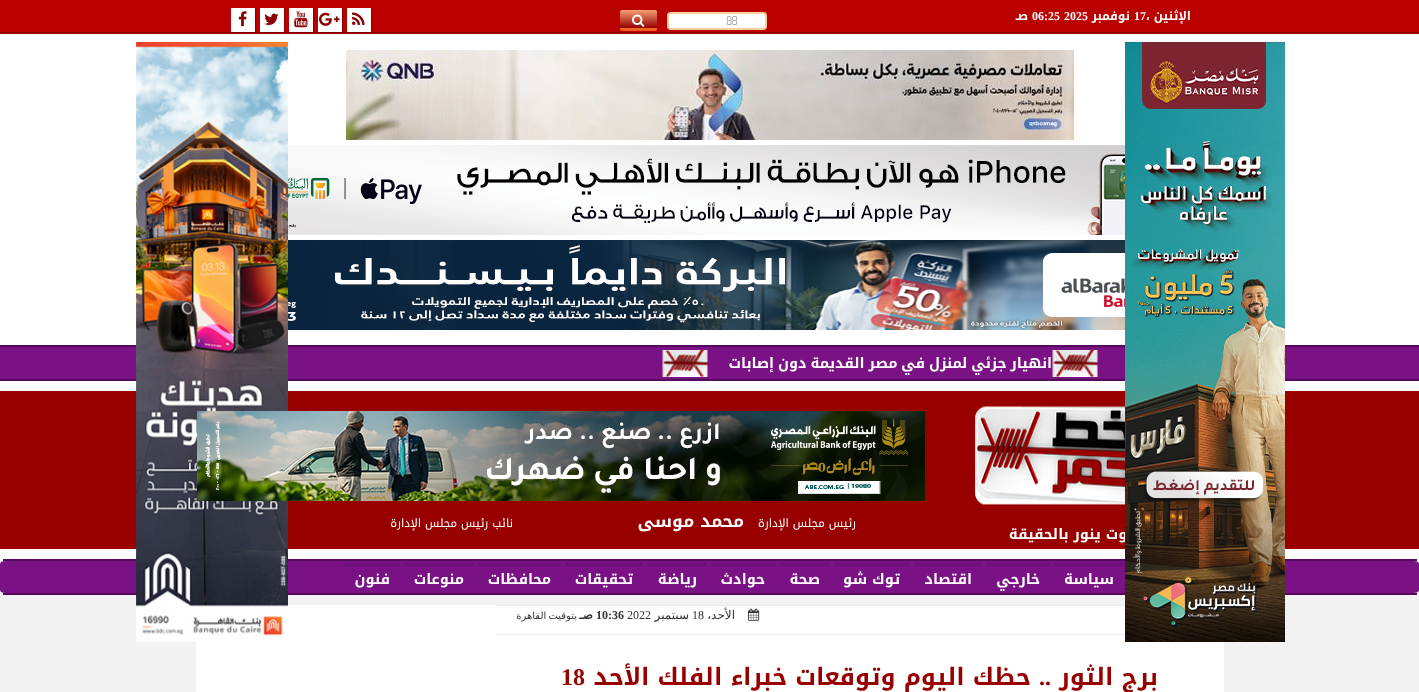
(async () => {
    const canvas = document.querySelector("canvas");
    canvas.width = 1419;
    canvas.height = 692;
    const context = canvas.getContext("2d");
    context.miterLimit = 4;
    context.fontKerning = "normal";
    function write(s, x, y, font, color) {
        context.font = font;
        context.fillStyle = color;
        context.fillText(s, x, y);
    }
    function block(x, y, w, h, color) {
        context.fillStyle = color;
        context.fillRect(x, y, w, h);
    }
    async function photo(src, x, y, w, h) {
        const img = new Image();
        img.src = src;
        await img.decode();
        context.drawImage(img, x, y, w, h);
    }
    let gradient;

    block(0, 0, 1419, 692, "rgb(242, 242, 242)");
    block(0, 34, 1419, 561, "rgb(255, 255, 255)");
    block(0, 0, 1419, 32, "rgb(187, 0, 0)");
    block(0, 32, 1419, 2, "rgb(152, 0, 0)");
    context.direction = "rtl";
    write("الإثنين", 1191, 20, "bold 12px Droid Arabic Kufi", "rgb(255, 255, 255)");
    context.direction = "ltr";
    write("،", 1146, 20, "bold 12px Droid Arabic Kufi", "rgb(255, 255, 255)");
    write("17", 1134, 20, "bold 12px Liberation Serif", "rgb(255, 255, 255)");
    context.direction = "rtl";
    write("نوفمبر", 1130, 20, "bold 12px Droid Arabic Kufi", "rgb(255, 255, 255)");
    context.direction = "ltr";
    write("2025", 1064, 20, "bold 12px Liberation Serif", "rgb(255, 255, 255)");
    write("06:25", 1032, 20, "bold 12px Liberation Serif", "rgb(255, 255, 255)");
    context.direction = "rtl";
    write("صـ", 1028, 20, "bold 12px Droid Arabic Kufi", "rgb(255, 255, 255)");
    context.beginPath();
    context.roundRect(668, 13, 98, 16, 3);
    context.fill();
    context.strokeStyle = "rgb(254, 208, 154)";
    context.lineWidth = 2;
    context.stroke();
    await photo("media/1.png", 726, 16, 11, 9);
    gradient = context.createLinearGradient(639, 10, 639, 31);
    gradient.addColorStop(0, "rgb(245, 160, 118)");
    gradient.addColorStop(0.84, "rgb(152, 0, 0)");
    gradient.addColorStop(0.86, "rgb(243, 111, 33)");
    gradient.addColorStop(1, "rgb(239, 81, 35)");
    context.fillStyle = gradient;
    context.beginPath();
    context.roundRect(620, 10, 37, 21, 2);
    context.fill();
    await photo("media/2.png", 632, 14, 13, 13);
    context.fillStyle = "rgb(136, 0, 0)";
    context.filter = "blur(0.5px)";
    context.beginPath();
    context.rect(348, 9, 24, 24);
    context.fill();
    context.filter = "none";
    block(347, 8, 24, 24, "rgb(255, 255, 255)");
    await photo("media/3.png", 352, 12, 13, 13);
    context.fillStyle = "rgb(136, 0, 0)";
    context.filter = "blur(0.5px)";
    context.beginPath();
    context.rect(319, 9, 24, 24);
    context.fill();
    context.filter = "none";
    block(318, 8, 24, 24, "rgb(255, 255, 255)");
    await photo("media/4.png", 319, 12, 21, 14);
    context.fillStyle = "rgb(136, 0, 0)";
    context.filter = "blur(0.5px)";
    context.beginPath();
    context.rect(290, 9, 24, 24);
    context.fill();
    context.filter = "none";
    block(289, 8, 24, 24, "rgb(255, 255, 255)");
    await photo("media/5.png", 294, 11, 14, 17);
    context.fillStyle = "rgb(136, 0, 0)";
    context.filter = "blur(0.5px)";
    context.beginPath();
    context.rect(261, 9, 24, 24);
    context.fill();
    context.filter = "none";
    block(260, 8, 24, 24, "rgb(255, 255, 255)");
    await photo("media/6.png", 264, 13, 15, 12);
    context.fillStyle = "rgb(136, 0, 0)";
    context.filter = "blur(0.5px)";
    context.beginPath();
    context.rect(232, 9, 24, 24);
    context.fill();
    context.filter = "none";
    block(231, 8, 24, 24, "rgb(255, 255, 255)");
    await photo("media/7.png", 238, 11, 9, 16);
    await photo("media/8.png", 346, 50, 728, 90);
    await photo("media/9.png", 288, 145, 837, 90);
    await photo("media/10.png", 288, 240, 837, 90);
    block(0, 347, 1419, 32, "rgb(122, 18, 134)");
    block(0, 345, 1419, 2, "rgb(84, 9, 93)");
    block(0, 379, 1419, 2, "rgb(84, 9, 93)");
    await photo("media/11.png", 1052, 350, 46, 27);
    context.wordSpacing = "-1px";
    write("انهيار جزئي لمنزل في مصر القديمة دون إصابات", 1052, 368, "bold 14.4px Droid Arabic Kufi", "rgb(255, 255, 255)");
    await photo("media/11.png", 662, 350, 46, 27);
    block(0, 391, 1419, 158, "rgb(152, 0, 0)");
    context.fillStyle = "rgb(122, 18, 134)";
    context.beginPath();
    context.moveTo(5, 561);
    context.lineTo(1414, 561);
    context.bezierCurveTo(1417, 561, 1419, 562, 1419, 564);
    context.lineTo(1419, 590);
    context.bezierCurveTo(1419, 592, 1417, 593, 1414, 593);
    context.lineTo(5, 593);
    context.bezierCurveTo(2, 593, 0, 592, 0, 590);
    context.lineTo(0, 564);
    context.bezierCurveTo(0, 562, 2, 561, 5, 561);
    context.closePath();
    context.fill();
    block(3, 559, 1414, 2, "rgb(84, 9, 93)");
    block(3, 593, 1414, 2, "rgb(84, 9, 93)");
    block(196, 605, 300, 87, "rgb(255, 255, 255)");
    await photo("media/15.png", 136, 42, 152, 600);
    await photo("media/12.png", 197, 411, 728, 90);
    context.wordSpacing = "0px";
    write("رئيس مجلس الإدارة", 856, 527, "11.5px Droid Arabic Kufi", "rgb(255, 255, 255)");
    write("محمد موسى", 744, 527, "bold 17.25px Droid Arabic Kufi", "rgb(255, 255, 255)");
    write("نائب رئيس مجلس الإدارة", 513, 527, "11.5px Droid Arabic Kufi", "rgb(255, 255, 255)");
    await photo("media/13.png", 975, 406, 150, 99);
    write("صوت ينور بالحقيقة", 1140, 539, "bold 14.4px Droid Arabic Kufi", "rgb(255, 255, 255)");
    block(1054, 563, 70, 3, "rgb(110, 16, 121)");
    write("سياسة", 1114, 584, "bold 14.4px Droid Arabic Kufi", "rgb(255, 255, 255)");
    block(986, 563, 64, 3, "rgb(110, 16, 121)");
    write("خارجي", 1040, 584, "bold 14.4px Droid Arabic Kufi", "rgb(255, 255, 255)");
    block(914, 563, 68, 3, "rgb(110, 16, 121)");
    write("اقتصاد", 972, 584, "bold 14.4px Droid Arabic Kufi", "rgb(255, 255, 255)");
    block(834, 563, 76, 3, "rgb(110, 16, 121)");
    write("توك شو", 900, 584, "bold 14.4px Droid Arabic Kufi", "rgb(255, 255, 255)");
    block(779, 563, 51, 3, "rgb(110, 16, 121)");
    write("صحة", 820, 584, "bold 14.4px Droid Arabic Kufi", "rgb(255, 255, 255)");
    block(711, 563, 64, 3, "rgb(110, 16, 121)");
    write("حوادث", 765, 584, "bold 14.4px Droid Arabic Kufi", "rgb(255, 255, 255)");
    block(647, 563, 60, 3, "rgb(110, 16, 121)");
    write("رياضة", 697, 584, "bold 14.4px Droid Arabic Kufi", "rgb(255, 255, 255)");
    block(565, 563, 78, 3, "rgb(110, 16, 121)");
    write("تحقيقات", 633, 584, "bold 14.4px Droid Arabic Kufi", "rgb(255, 255, 255)");
    block(478, 563, 83, 3, "rgb(110, 16, 121)");
    write("محافظات", 551, 584, "bold 14.4px Droid Arabic Kufi", "rgb(255, 255, 255)");
    block(404, 563, 70, 3, "rgb(110, 16, 121)");
    write("منوعات", 464, 584, "bold 14.4px Droid Arabic Kufi", "rgb(255, 255, 255)");
    block(344, 563, 56, 3, "rgb(110, 16, 121)");
    write("فنون", 390, 584, "bold 14.4px Droid Arabic Kufi", "rgb(255, 255, 255)");
    block(496, 606, 728, 86, "rgb(255, 255, 255)");
    await photo("media/14.png", 1125, 42, 160, 600);
    block(496, 605, 629, 1, "rgb(238, 238, 238)");
    block(496, 634, 629, 1, "rgb(238, 238, 238)");
    await photo("media/16.png", 748, 608, 12, 13);
    write("الأحد،", 735, 619, "12px DejaVu Sans", "rgb(51, 51, 51)");
    context.direction = "ltr";
    write("18", 692, 619, "12px Liberation Serif", "rgb(51, 51, 51)");
    context.direction = "rtl";
    write("سبتمبر", 689, 619, "12px DejaVu Sans", "rgb(51, 51, 51)");
    context.direction = "ltr";
    write("2022", 627, 619, "12px Liberation Serif", "rgb(51, 51, 51)");
    write("10:36", 596, 619, "bold 12px Liberation Serif", "rgb(51, 51, 51)");
    context.direction = "rtl";
    write("صـ", 593, 619, "bold 12px DejaVu Sans", "rgb(51, 51, 51)");
    context.wordSpacing = "-1px";
    write("بتوقيت القاهرة", 577, 619, "10px DejaVu Sans", "rgb(51, 51, 51)");
    context.wordSpacing = "0px";
    write("برج الثور", 1158, 685, "bold 24px Droid Arabic Kufi", "rgb(152, 0, 0)");
    write("..", 1051, 685, "bold 24px Liberation Serif", "rgb(152, 0, 0)");
    write("حظك اليوم وتوقعات خبراء الفلك الأحد", 1031, 685, "bold 24px Droid Arabic Kufi", "rgb(152, 0, 0)");
    context.direction = "ltr";
    write("18", 561, 685, "bold 24px Liberation Serif", "rgb(152, 0, 0)");
})();
